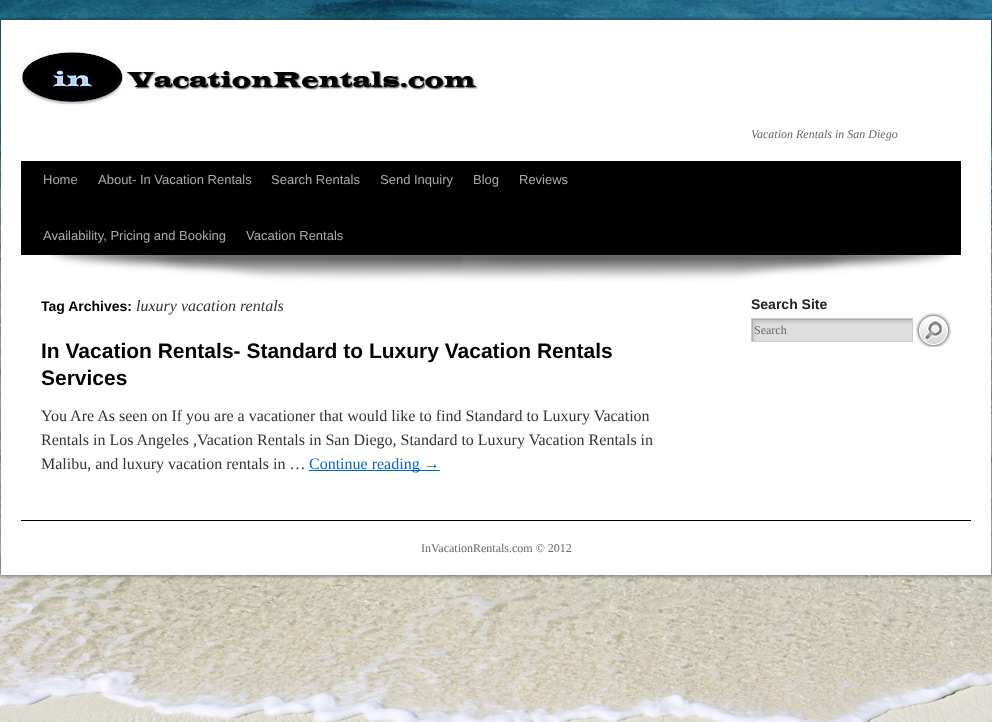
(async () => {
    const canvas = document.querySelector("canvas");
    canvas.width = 992;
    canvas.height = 722;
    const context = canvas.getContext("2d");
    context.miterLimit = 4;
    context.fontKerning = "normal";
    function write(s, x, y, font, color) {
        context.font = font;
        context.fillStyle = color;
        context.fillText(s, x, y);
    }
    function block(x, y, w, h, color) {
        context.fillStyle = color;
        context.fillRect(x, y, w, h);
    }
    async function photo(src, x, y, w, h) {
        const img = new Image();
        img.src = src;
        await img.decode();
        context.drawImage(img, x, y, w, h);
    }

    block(0, 0, 992, 722, "rgb(255, 255, 255)");
    await photo("media/1.png", 0, 0, 992, 722);
    context.fillStyle = "rgba(0, 0, 0, 0.3)";
    context.filter = "blur(1.5px)";
    context.beginPath();
    context.rect(-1, 18, 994, 559);
    context.fill();
    context.filter = "none";
    block(1, 20, 990, 555, "rgb(255, 255, 255)");
    await photo("media/2.png", 21, 50, 458, 55);
    write("Vacation Rentals in San Diego", 751, 138, "italic 12px Liberation Serif", "rgb(102, 102, 102)");
    block(21, 161, 940, 94, "rgb(0, 0, 0)");
    write("Home", 43, 184, "13px Liberation Sans", "rgb(170, 170, 170)");
    write("About- In Vacation Rentals", 98, 184, "13px Liberation Sans", "rgb(170, 170, 170)");
    write("Search Rentals", 271, 184, "13px Liberation Sans", "rgb(170, 170, 170)");
    write("Send Inquiry", 380, 184, "13px Liberation Sans", "rgb(170, 170, 170)");
    write("Blog", 473, 184, "13px Liberation Sans", "rgb(170, 170, 170)");
    write("Reviews", 519, 184, "13px Liberation Sans", "rgb(170, 170, 170)");
    write("Availability, Pricing and Booking", 43, 240, "13px Liberation Sans", "rgb(170, 170, 170)");
    write("Vacation Rentals", 246, 240, "13px Liberation Sans", "rgb(170, 170, 170)");
    await photo("media/3.png", 49, 255, 905, 27);
    write("Tag Archives:", 41, 311, "bold 14px Liberation Sans", "rgb(0, 0, 0)");
    write("luxury vacation rentals", 136, 311, "italic 16px Liberation Serif", "rgb(51, 51, 51)");
    write("In Vacation Rentals- Standard to Luxury Vacation Rentals", 41, 358, "bold 21px Liberation Sans", "rgb(0, 0, 0)");
    write("Services", 41, 385, "bold 21px Liberation Sans", "rgb(0, 0, 0)");
    write("You Are As seen on If you are a vacationer that would like to find Standard to Luxury Vacation", 41, 421, "16px Liberation Serif", "rgb(51, 51, 51)");
    write("Rentals in Los Angeles ,Vacation Rentals in San Diego, Standard to Luxury Vacation Rentals in", 41, 445, "16px Liberation Serif", "rgb(51, 51, 51)");
    write("Malibu, and luxury vacation rentals in …", 41, 469, "16px Liberation Serif", "rgb(51, 51, 51)");
    block(309, 470, 131, 1, "rgb(0, 102, 204)");
    write("Continue reading →", 309, 469, "16px Liberation Serif", "rgb(0, 102, 204)");
    write("Search Site", 751, 309, "bold 14px Liberation Sans", "rgb(34, 34, 34)");
    await photo("media/4.png", 752, 319, 160, 22);
    context.strokeStyle = "rgb(204, 204, 204)";
    context.strokeRect(751.5, 318.5, 161, 23);
    write("Search", 754, 334, "12px Liberation Serif", "rgb(102, 102, 102)");
    await photo("media/5.png", 916, 313, 35, 34);
    block(21, 520, 950, 1, "rgb(0, 0, 0)");
    write("InVacationRentals.com © 2012", 421, 552, "12px Liberation Serif", "rgb(102, 102, 102)");
})();
